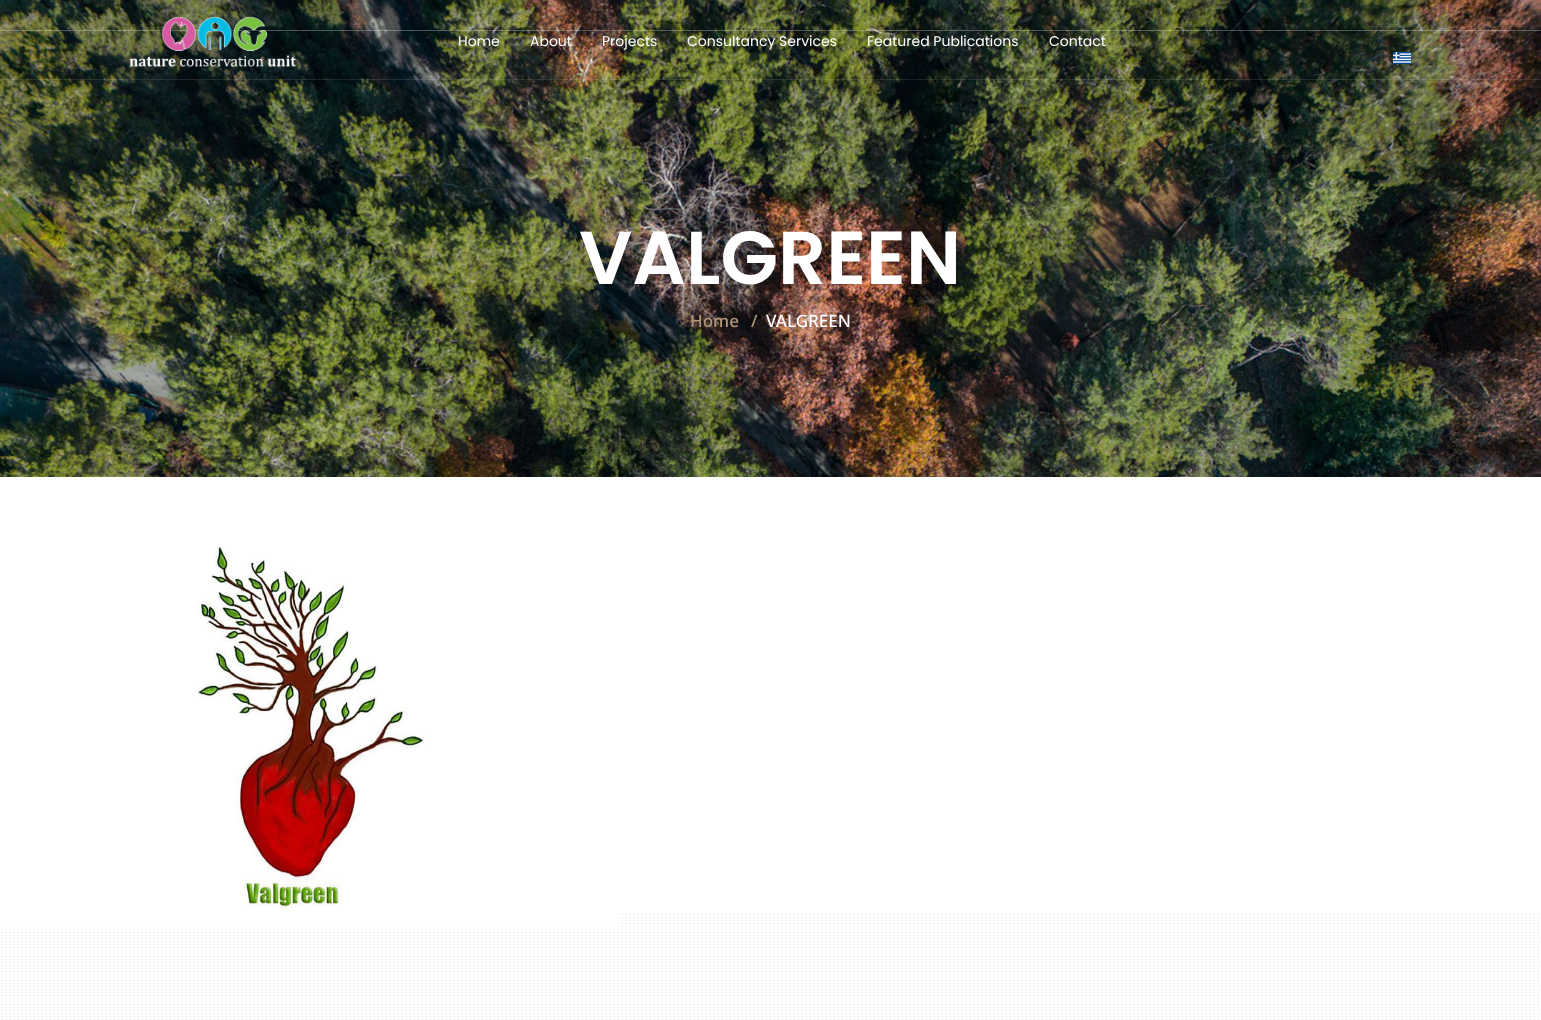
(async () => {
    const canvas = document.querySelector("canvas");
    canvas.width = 1541;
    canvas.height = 1020;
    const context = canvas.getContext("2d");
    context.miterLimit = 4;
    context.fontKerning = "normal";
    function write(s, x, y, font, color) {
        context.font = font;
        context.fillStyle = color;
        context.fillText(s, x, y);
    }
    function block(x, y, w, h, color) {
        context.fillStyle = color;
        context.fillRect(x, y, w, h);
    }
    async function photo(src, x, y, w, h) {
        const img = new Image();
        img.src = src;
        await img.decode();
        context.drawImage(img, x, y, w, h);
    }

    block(0, 0, 1541, 1020, "rgb(255, 255, 255)");
    await photo("media/3.png", 0, 0, 1541, 477);
    block(0, 30, 1541, 1, "rgba(255, 255, 255, 0.1)");
    block(0, 30, 1541, 1, "rgba(255, 255, 255, 0.1)");
    block(0, 30, 1541, 1, "rgba(255, 255, 255, 0.1)");
    block(0, 79, 1541, 1, "rgba(255, 255, 255, 0.1)");
    await photo("media/1.png", 129, 16, 168, 52);
    write("Home", 458, 46, "14px Poppins", "rgb(255, 255, 255)");
    write("About", 530, 46, "14px Poppins", "rgb(255, 255, 255)");
    write("Projects", 602, 46, "14px Poppins", "rgb(255, 255, 255)");
    write("Consultancy Services", 687, 46, "14px Poppins", "rgb(255, 255, 255)");
    write("Featured Publications", 867, 46, "14px Poppins", "rgb(255, 255, 255)");
    write("Contact", 1049, 46, "14px Poppins", "rgb(255, 255, 255)");
    await photo("media/2.png", 1393, 52, 18, 12);
    write("VALGREEN", 579, 284, "600 75px Poppins", "rgb(255, 255, 255)");
    write("Home", 690, 327, "500 17px Noto Sans", "rgb(177, 151, 119)");
    write("/", 751, 327, "500 17px Noto Sans", "rgb(177, 151, 119)");
    write("VALGREEN", 766, 327, "500 17px Noto Sans", "rgb(255, 255, 255)");
    await photo("media/5.png", 1, 914, 1538, 106);
    await photo("media/4.png", 1, 545, 618, 382);
})();
